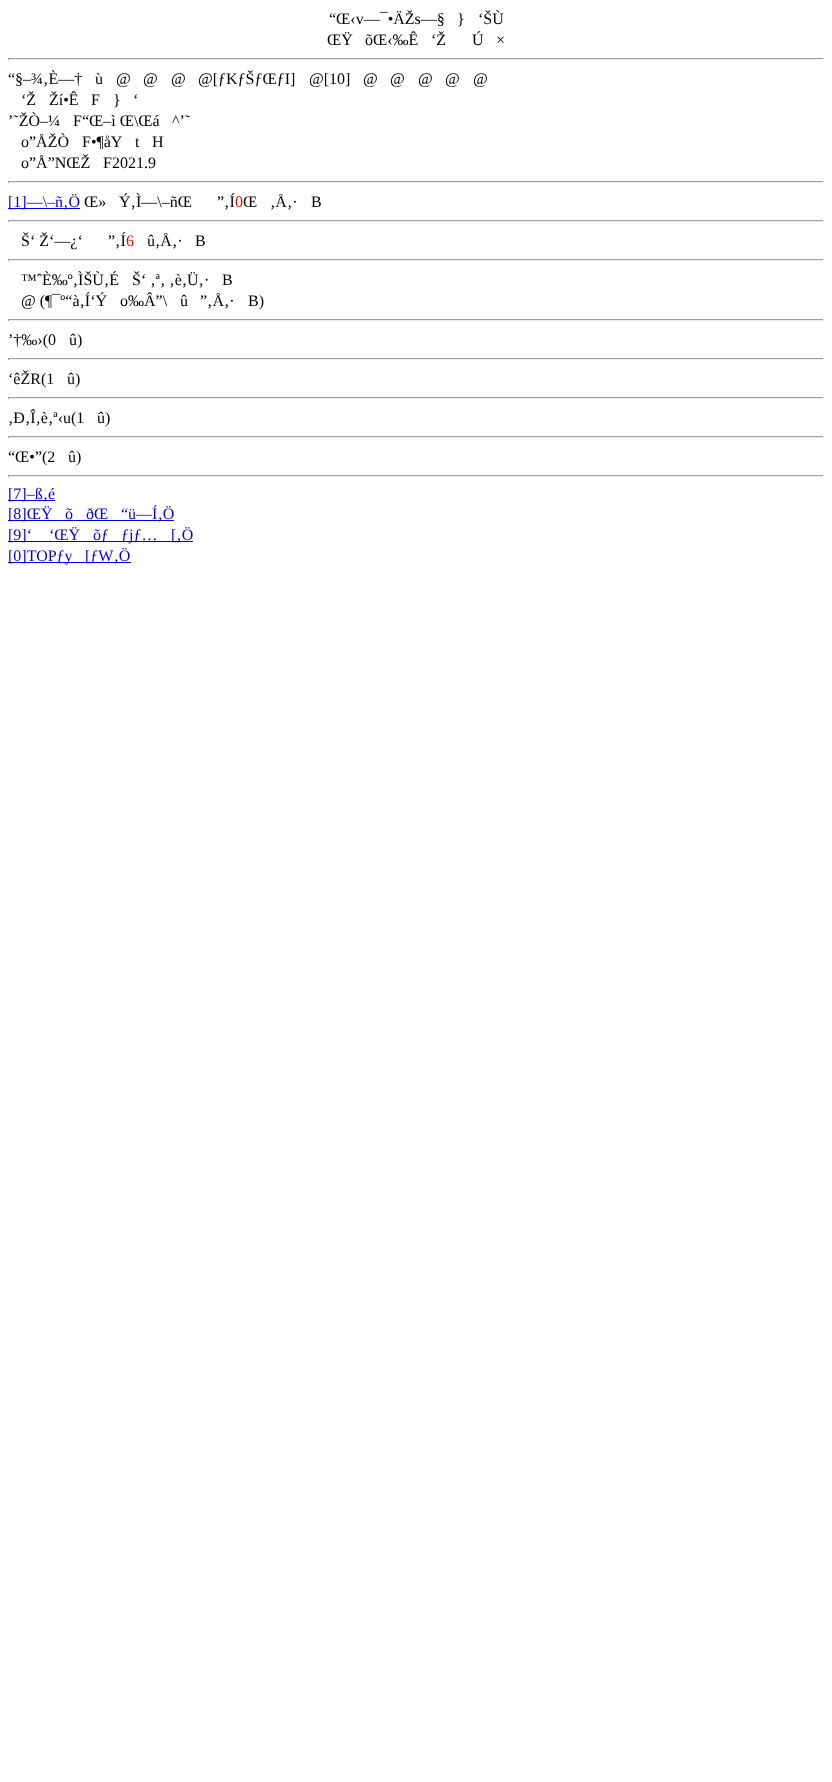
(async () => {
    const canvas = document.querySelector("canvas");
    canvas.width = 832;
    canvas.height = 1782;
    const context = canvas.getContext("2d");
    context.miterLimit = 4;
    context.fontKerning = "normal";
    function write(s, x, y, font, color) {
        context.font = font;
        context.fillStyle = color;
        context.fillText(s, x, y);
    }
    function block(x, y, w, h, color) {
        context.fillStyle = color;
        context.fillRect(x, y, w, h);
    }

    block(0, 0, 832, 1782, "rgb(255, 255, 255)");
    write("“Œ‹v—¯•ÄŽs—§", 329, 24, "16px Liberation Serif", "rgb(0, 0, 0)");
    write("}", 457, 24, "16px Liberation Serif", "rgb(0, 0, 0)");
    write("‘ŠÙ", 478, 24, "16px Liberation Serif", "rgb(0, 0, 0)");
    write("ŒŸ", 327, 45, "16px Liberation Serif", "rgb(0, 0, 0)");
    write("õŒ‹‰Ê", 365, 45, "16px Liberation Serif", "rgb(0, 0, 0)");
    write("‘Ž", 431, 45, "16px Liberation Serif", "rgb(0, 0, 0)");
    write("Ú", 472, 45, "16px Liberation Serif", "rgb(0, 0, 0)");
    write("×", 496, 45, "16px Liberation Serif", "rgb(0, 0, 0)");
    block(8, 58, 816, 1, "rgb(159, 159, 159)");
    block(823, 58, 1, 2, "rgb(238, 238, 238)");
    block(8, 59, 816, 1, "rgb(238, 238, 238)");
    block(8, 58, 1, 2, "rgb(159, 159, 159)");
    write("“§–¾‚È—†", 8, 84, "16px Liberation Serif", "rgb(0, 0, 0)");
    write("ù", 95, 84, "16px Liberation Serif", "rgb(0, 0, 0)");
    write("@", 116, 84, "16px Liberation Serif", "rgb(0, 0, 0)");
    write("@", 143, 84, "16px Liberation Serif", "rgb(0, 0, 0)");
    write("@", 171, 84, "16px Liberation Serif", "rgb(0, 0, 0)");
    write("@[ƒKƒŠƒŒƒI]", 198, 84, "16px Liberation Serif", "rgb(0, 0, 0)");
    write("@[10]", 309, 84, "16px Liberation Serif", "rgb(0, 0, 0)");
    write("@", 363, 84, "16px Liberation Serif", "rgb(0, 0, 0)");
    write("@", 390, 84, "16px Liberation Serif", "rgb(0, 0, 0)");
    write("@", 418, 84, "16px Liberation Serif", "rgb(0, 0, 0)");
    write("@", 445, 84, "16px Liberation Serif", "rgb(0, 0, 0)");
    write("@", 473, 84, "16px Liberation Serif", "rgb(0, 0, 0)");
    write("‘Ž", 21, 105, "16px Liberation Serif", "rgb(0, 0, 0)");
    write("Ží•Ê", 49, 105, "16px Liberation Serif", "rgb(0, 0, 0)");
    write("F", 91, 105, "16px Liberation Serif", "rgb(0, 0, 0)");
    write("}", 113, 105, "16px Liberation Serif", "rgb(0, 0, 0)");
    write("‘", 133, 105, "16px Liberation Serif", "rgb(0, 0, 0)");
    write("’˜ŽÒ–¼", 8, 126, "16px Liberation Serif", "rgb(0, 0, 0)");
    write("F“Œ–ì Œ\\Œá", 73, 126, "16px Liberation Serif", "rgb(0, 0, 0)");
    write("^’˜", 172, 126, "16px Liberation Serif", "rgb(0, 0, 0)");
    write("o”ÅŽÒ", 21, 147, "16px Liberation Serif", "rgb(0, 0, 0)");
    write("F•¶åY", 82, 147, "16px Liberation Serif", "rgb(0, 0, 0)");
    write("t", 135, 147, "16px Liberation Serif", "rgb(0, 0, 0)");
    write("H", 152, 147, "16px Liberation Serif", "rgb(0, 0, 0)");
    write("o”Å”NŒŽ", 21, 168, "16px Liberation Serif", "rgb(0, 0, 0)");
    write("F2021.9", 103, 168, "16px Liberation Serif", "rgb(0, 0, 0)");
    block(8, 181, 816, 1, "rgb(159, 159, 159)");
    block(823, 181, 1, 2, "rgb(238, 238, 238)");
    block(8, 182, 816, 1, "rgb(238, 238, 238)");
    block(8, 181, 1, 2, "rgb(159, 159, 159)");
    block(8, 208, 72, 1, "rgb(0, 0, 238)");
    write("[1]—\\–ñ‚Ö", 8, 207, "16px Liberation Serif", "rgb(0, 0, 238)");
    write("Œ»", 84, 207, "16px Liberation Serif", "rgb(0, 0, 0)");
    write("Ý‚Ì—\\–ñŒ", 119, 207, "16px Liberation Serif", "rgb(0, 0, 0)");
    write("”‚Í", 217, 207, "16px Liberation Serif", "rgb(0, 0, 0)");
    write("0", 235, 207, "16px Liberation Serif", "rgb(240, 0, 0)");
    write("Œ", 243, 207, "16px Liberation Serif", "rgb(0, 0, 0)");
    write("‚Å‚·", 270, 207, "16px Liberation Serif", "rgb(0, 0, 0)");
    write("B", 311, 207, "16px Liberation Serif", "rgb(0, 0, 0)");
    block(8, 220, 816, 1, "rgb(159, 159, 159)");
    block(823, 220, 1, 2, "rgb(238, 238, 238)");
    block(8, 221, 816, 1, "rgb(238, 238, 238)");
    block(8, 220, 1, 2, "rgb(159, 159, 159)");
    write("Š‘ Ž‘—¿‘", 21, 246, "16px Liberation Serif", "rgb(0, 0, 0)");
    write("”‚Í", 108, 246, "16px Liberation Serif", "rgb(0, 0, 0)");
    write("6", 126, 246, "16px Liberation Serif", "rgb(240, 0, 0)");
    write("û‚Å‚·", 147, 246, "16px Liberation Serif", "rgb(0, 0, 0)");
    write("B", 195, 246, "16px Liberation Serif", "rgb(0, 0, 0)");
    block(8, 259, 816, 1, "rgb(159, 159, 159)");
    block(823, 259, 1, 2, "rgb(238, 238, 238)");
    block(8, 260, 816, 1, "rgb(238, 238, 238)");
    block(8, 259, 1, 2, "rgb(159, 159, 159)");
    write("™ˆÈ‰º‚ÌŠÙ‚É", 21, 285, "16px Liberation Serif", "rgb(0, 0, 0)");
    write("Š‘ ‚ª‚ ‚è‚Ü‚·", 132, 285, "16px Liberation Serif", "rgb(0, 0, 0)");
    write("B", 222, 285, "16px Liberation Serif", "rgb(0, 0, 0)");
    write("@ (¶¯º“à‚Í‘Ý", 21, 306, "16px Liberation Serif", "rgb(0, 0, 0)");
    write("o‰Â”\\", 120, 306, "16px Liberation Serif", "rgb(0, 0, 0)");
    write("û", 180, 306, "16px Liberation Serif", "rgb(0, 0, 0)");
    write("”‚Å‚·", 200, 306, "16px Liberation Serif", "rgb(0, 0, 0)");
    write("B)", 248, 306, "16px Liberation Serif", "rgb(0, 0, 0)");
    block(8, 319, 816, 1, "rgb(159, 159, 159)");
    block(823, 319, 1, 2, "rgb(238, 238, 238)");
    block(8, 320, 816, 1, "rgb(238, 238, 238)");
    block(8, 319, 1, 2, "rgb(159, 159, 159)");
    write("’†‰›(0", 8, 345, "16px Liberation Serif", "rgb(0, 0, 0)");
    write("û)", 69, 345, "16px Liberation Serif", "rgb(0, 0, 0)");
    block(8, 358, 816, 1, "rgb(159, 159, 159)");
    block(823, 358, 1, 2, "rgb(238, 238, 238)");
    block(8, 359, 816, 1, "rgb(238, 238, 238)");
    block(8, 358, 1, 2, "rgb(159, 159, 159)");
    write("‘êŽR(1", 8, 384, "16px Liberation Serif", "rgb(0, 0, 0)");
    write("û)", 67, 384, "16px Liberation Serif", "rgb(0, 0, 0)");
    block(8, 397, 816, 1, "rgb(159, 159, 159)");
    block(823, 397, 1, 2, "rgb(238, 238, 238)");
    block(8, 398, 816, 1, "rgb(238, 238, 238)");
    block(8, 397, 1, 2, "rgb(159, 159, 159)");
    write("‚Ð‚Î‚è‚ª‹u(1", 8, 423, "16px Liberation Serif", "rgb(0, 0, 0)");
    write("û)", 97, 423, "16px Liberation Serif", "rgb(0, 0, 0)");
    block(8, 436, 816, 1, "rgb(159, 159, 159)");
    block(823, 436, 1, 2, "rgb(238, 238, 238)");
    block(8, 437, 816, 1, "rgb(238, 238, 238)");
    block(8, 436, 1, 2, "rgb(159, 159, 159)");
    write("“Œ•”(2", 8, 462, "16px Liberation Serif", "rgb(0, 0, 0)");
    write("û)", 68, 462, "16px Liberation Serif", "rgb(0, 0, 0)");
    block(8, 475, 816, 1, "rgb(159, 159, 159)");
    block(823, 475, 1, 2, "rgb(238, 238, 238)");
    block(8, 476, 816, 1, "rgb(238, 238, 238)");
    block(8, 475, 1, 2, "rgb(159, 159, 159)");
    block(8, 500, 47, 1, "rgb(0, 0, 238)");
    write("[7]–ß‚é", 8, 499, "16px Liberation Serif", "rgb(0, 0, 238)");
    block(8, 520, 166, 1, "rgb(0, 0, 238)");
    write("[8]ŒŸ", 8, 519, "16px Liberation Serif", "rgb(0, 0, 238)");
    write("õ", 65, 519, "16px Liberation Serif", "rgb(0, 0, 238)");
    write("ðŒ", 86, 519, "16px Liberation Serif", "rgb(0, 0, 238)");
    write("“ü—Í‚Ö", 121, 519, "16px Liberation Serif", "rgb(0, 0, 238)");
    block(8, 541, 185, 1, "rgb(0, 0, 238)");
    write("[9]‘", 8, 540, "16px Liberation Serif", "rgb(0, 0, 238)");
    write("‘ŒŸ", 49, 540, "16px Liberation Serif", "rgb(0, 0, 238)");
    write("õƒ", 93, 540, "16px Liberation Serif", "rgb(0, 0, 238)");
    write("ƒjƒ…", 121, 540, "16px Liberation Serif", "rgb(0, 0, 238)");
    write("[‚Ö", 171, 540, "16px Liberation Serif", "rgb(0, 0, 238)");
    block(8, 562, 123, 1, "rgb(0, 0, 238)");
    write("[0]TOPƒy", 8, 561, "16px Liberation Serif", "rgb(0, 0, 238)");
    write("[ƒW‚Ö", 85, 561, "16px Liberation Serif", "rgb(0, 0, 238)");
})();
